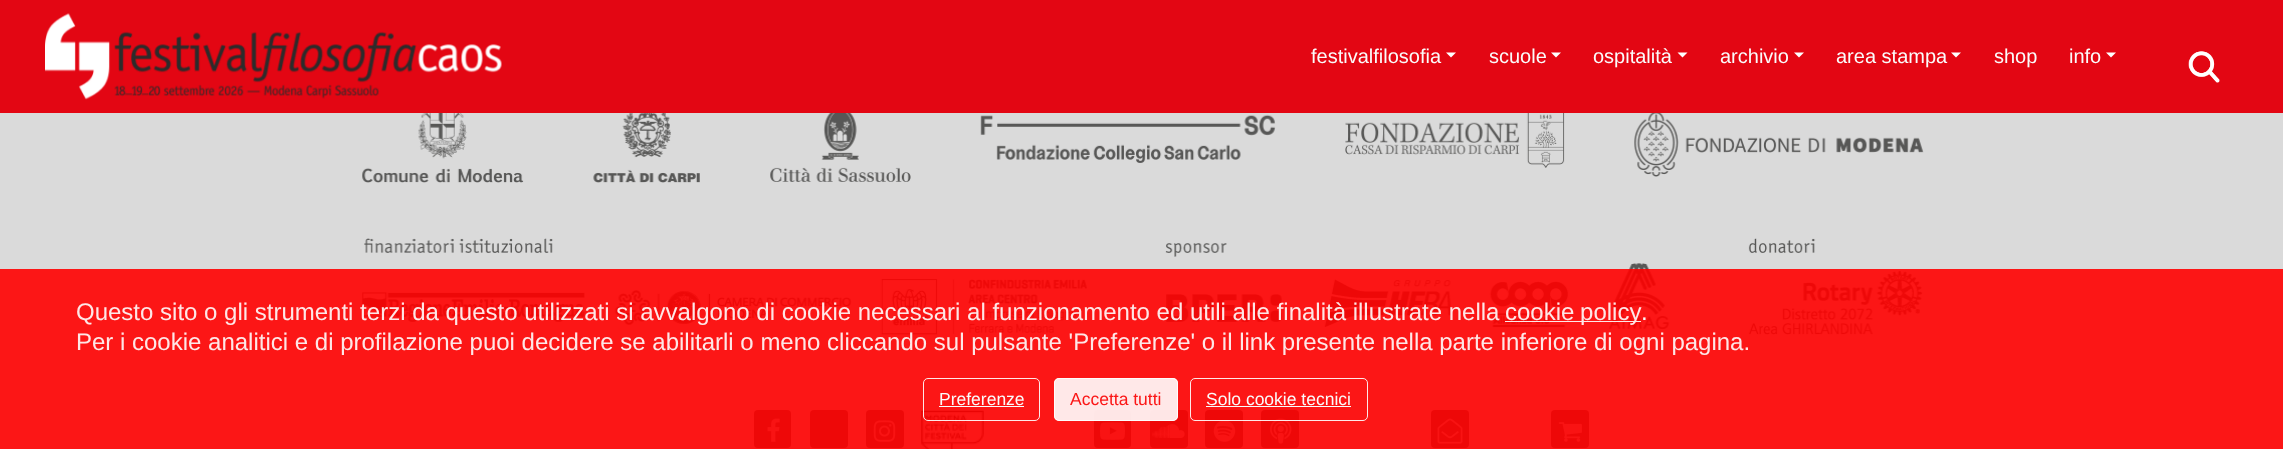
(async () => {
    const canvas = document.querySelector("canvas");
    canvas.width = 2283;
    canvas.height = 449;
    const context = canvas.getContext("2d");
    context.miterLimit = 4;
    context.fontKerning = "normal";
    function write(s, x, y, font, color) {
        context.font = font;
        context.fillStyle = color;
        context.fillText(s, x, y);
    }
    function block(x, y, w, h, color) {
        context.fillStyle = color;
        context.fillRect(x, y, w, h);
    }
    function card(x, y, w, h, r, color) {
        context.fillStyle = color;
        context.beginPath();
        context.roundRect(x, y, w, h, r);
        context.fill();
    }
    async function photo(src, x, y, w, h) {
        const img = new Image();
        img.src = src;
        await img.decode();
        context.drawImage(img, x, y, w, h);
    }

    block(0, 0, 2283, 449, "rgb(218, 218, 218)");
    block(0, 0, 2283, 113, "rgb(227, 6, 19)");
    await photo("media/1.png", 45, 13, 457, 87);
    write("festivalfilosofia", 1311, 63, "20px Liberation Sans", "rgb(251, 251, 251)");
    context.fillStyle = "rgb(255, 255, 255)";
    context.beginPath();
    context.moveTo(1446, 52.5);
    context.lineTo(1456, 52.5);
    context.lineTo(1451, 57.5);
    context.closePath();
    context.fill();
    write("scuole", 1489, 63, "20px Liberation Sans", "rgb(251, 251, 251)");
    context.fillStyle = "rgb(255, 255, 255)";
    context.beginPath();
    context.moveTo(1551, 52.5);
    context.lineTo(1561, 52.5);
    context.lineTo(1556, 57.5);
    context.closePath();
    context.fill();
    write("ospitalità", 1593, 63, "20px Liberation Sans", "rgb(251, 251, 251)");
    context.fillStyle = "rgb(255, 255, 255)";
    context.beginPath();
    context.moveTo(1677.5, 52.5);
    context.lineTo(1687.5, 52.5);
    context.lineTo(1682.5, 57.5);
    context.closePath();
    context.fill();
    write("archivio", 1720, 63, "20px Liberation Sans", "rgb(251, 251, 251)");
    context.fillStyle = "rgb(255, 255, 255)";
    context.beginPath();
    context.moveTo(1794, 52.5);
    context.lineTo(1804, 52.5);
    context.lineTo(1799, 57.5);
    context.closePath();
    context.fill();
    write("area stampa", 1836, 63, "20px Liberation Sans", "rgb(251, 251, 251)");
    context.fillStyle = "rgb(255, 255, 255)";
    context.beginPath();
    context.moveTo(1951, 52.5);
    context.lineTo(1961, 52.5);
    context.lineTo(1956, 57.5);
    context.closePath();
    context.fill();
    write("shop", 1994, 63, "20px Liberation Sans", "rgb(251, 251, 251)");
    write("info", 2069, 63, "20px Liberation Sans", "rgb(251, 251, 251)");
    context.fillStyle = "rgb(255, 255, 255)";
    context.beginPath();
    context.moveTo(2106, 52.5);
    context.lineTo(2116, 52.5);
    context.lineTo(2111, 57.5);
    context.closePath();
    context.fill();
    await photo("media/2.png", 2188, 51, 32, 32);
    await photo("media/3.png", 362, 113, 1562, 70);
    await photo("media/4.png", 362, 238, 1561, 97);
    card(754, 410, 37, 38, 4, "rgb(87, 87, 87)");
    await photo("media/5.png", 767, 418, 13, 24);
    card(810, 410, 38, 38, 4, "rgb(87, 87, 87)");
    card(866, 410, 38, 38, 4, "rgb(87, 87, 87)");
    await photo("media/6.png", 873, 420, 23, 22);
    await photo("media/7.png", 921, 410, 63, 39);
    card(1094, 410, 37, 38, 4, "rgb(87, 87, 87)");
    await photo("media/8.png", 1100, 422, 25, 18);
    card(1150, 410, 38, 38, 4, "rgb(87, 87, 87)");
    await photo("media/9.png", 1152, 424, 33, 14);
    card(1205, 410, 38, 38, 4, "rgb(87, 87, 87)");
    await photo("media/10.png", 1213, 420, 23, 22);
    card(1261, 410, 38, 38, 4, "rgb(87, 87, 87)");
    await photo("media/11.png", 1270, 418, 22, 26);
    card(1431, 410, 38, 38, 4, "rgb(87, 87, 87)");
    await photo("media/12.png", 1437, 418, 26, 26);
    card(1551, 410, 38, 38, 4, "rgb(87, 87, 87)");
    await photo("media/13.png", 1558, 422, 24, 20);
    block(0, 269, 2283, 180, "rgba(255, 0, 0, 0.9)");
    write("Questo sito o gli strumenti terzi da questo utilizzati si avvalgono di cookie necessari al funzionamento ed utili alle finalità illustrate nella", 76, 320, "24px Liberation Sans", "rgb(254, 231, 231)");
    block(1505, 321, 136, 1, "rgba(255, 255, 255, 0.9)");
    context.wordSpacing = "-1px";
    write("cookie policy", 1505, 320, "24px Liberation Sans", "rgb(254, 231, 231)");
    context.wordSpacing = "0px";
    write(".", 1641, 320, "24px Liberation Sans", "rgb(251, 251, 251)");
    write("Per i cookie analitici e di profilazione puoi decidere se abilitarli o meno cliccando sul pulsante 'Preferenze' o il link presente nella parte inferiore di ogni pagina.", 76, 350, "24px Liberation Sans", "rgb(254, 231, 231)");
    context.beginPath();
    context.roundRect(923.5, 378.5, 116, 42, 4.5);
    context.strokeStyle = "rgba(255, 255, 255, 0.9)";
    context.stroke();
    write("Preferenze", 939, 405, "17.5px Liberation Sans", "rgb(251, 251, 251)");
    block(939, 406, 85, 1, "rgb(251, 251, 251)");
    card(1054, 378, 124, 43, 5, "rgba(255, 255, 255, 0.9)");
    context.beginPath();
    context.roundRect(1054.5, 378.5, 123, 42, 4.5);
    context.stroke();
    write("Accetta tutti", 1070, 405, "17.5px Liberation Sans", "rgb(251, 22, 22)");
    context.beginPath();
    context.roundRect(1190.5, 378.5, 177, 42, 4.5);
    context.stroke();
    write("Solo cookie tecnici", 1206, 405, "17.5px Liberation Sans", "rgb(251, 251, 251)");
    block(1206, 406, 145, 1, "rgb(251, 251, 251)");
})();
